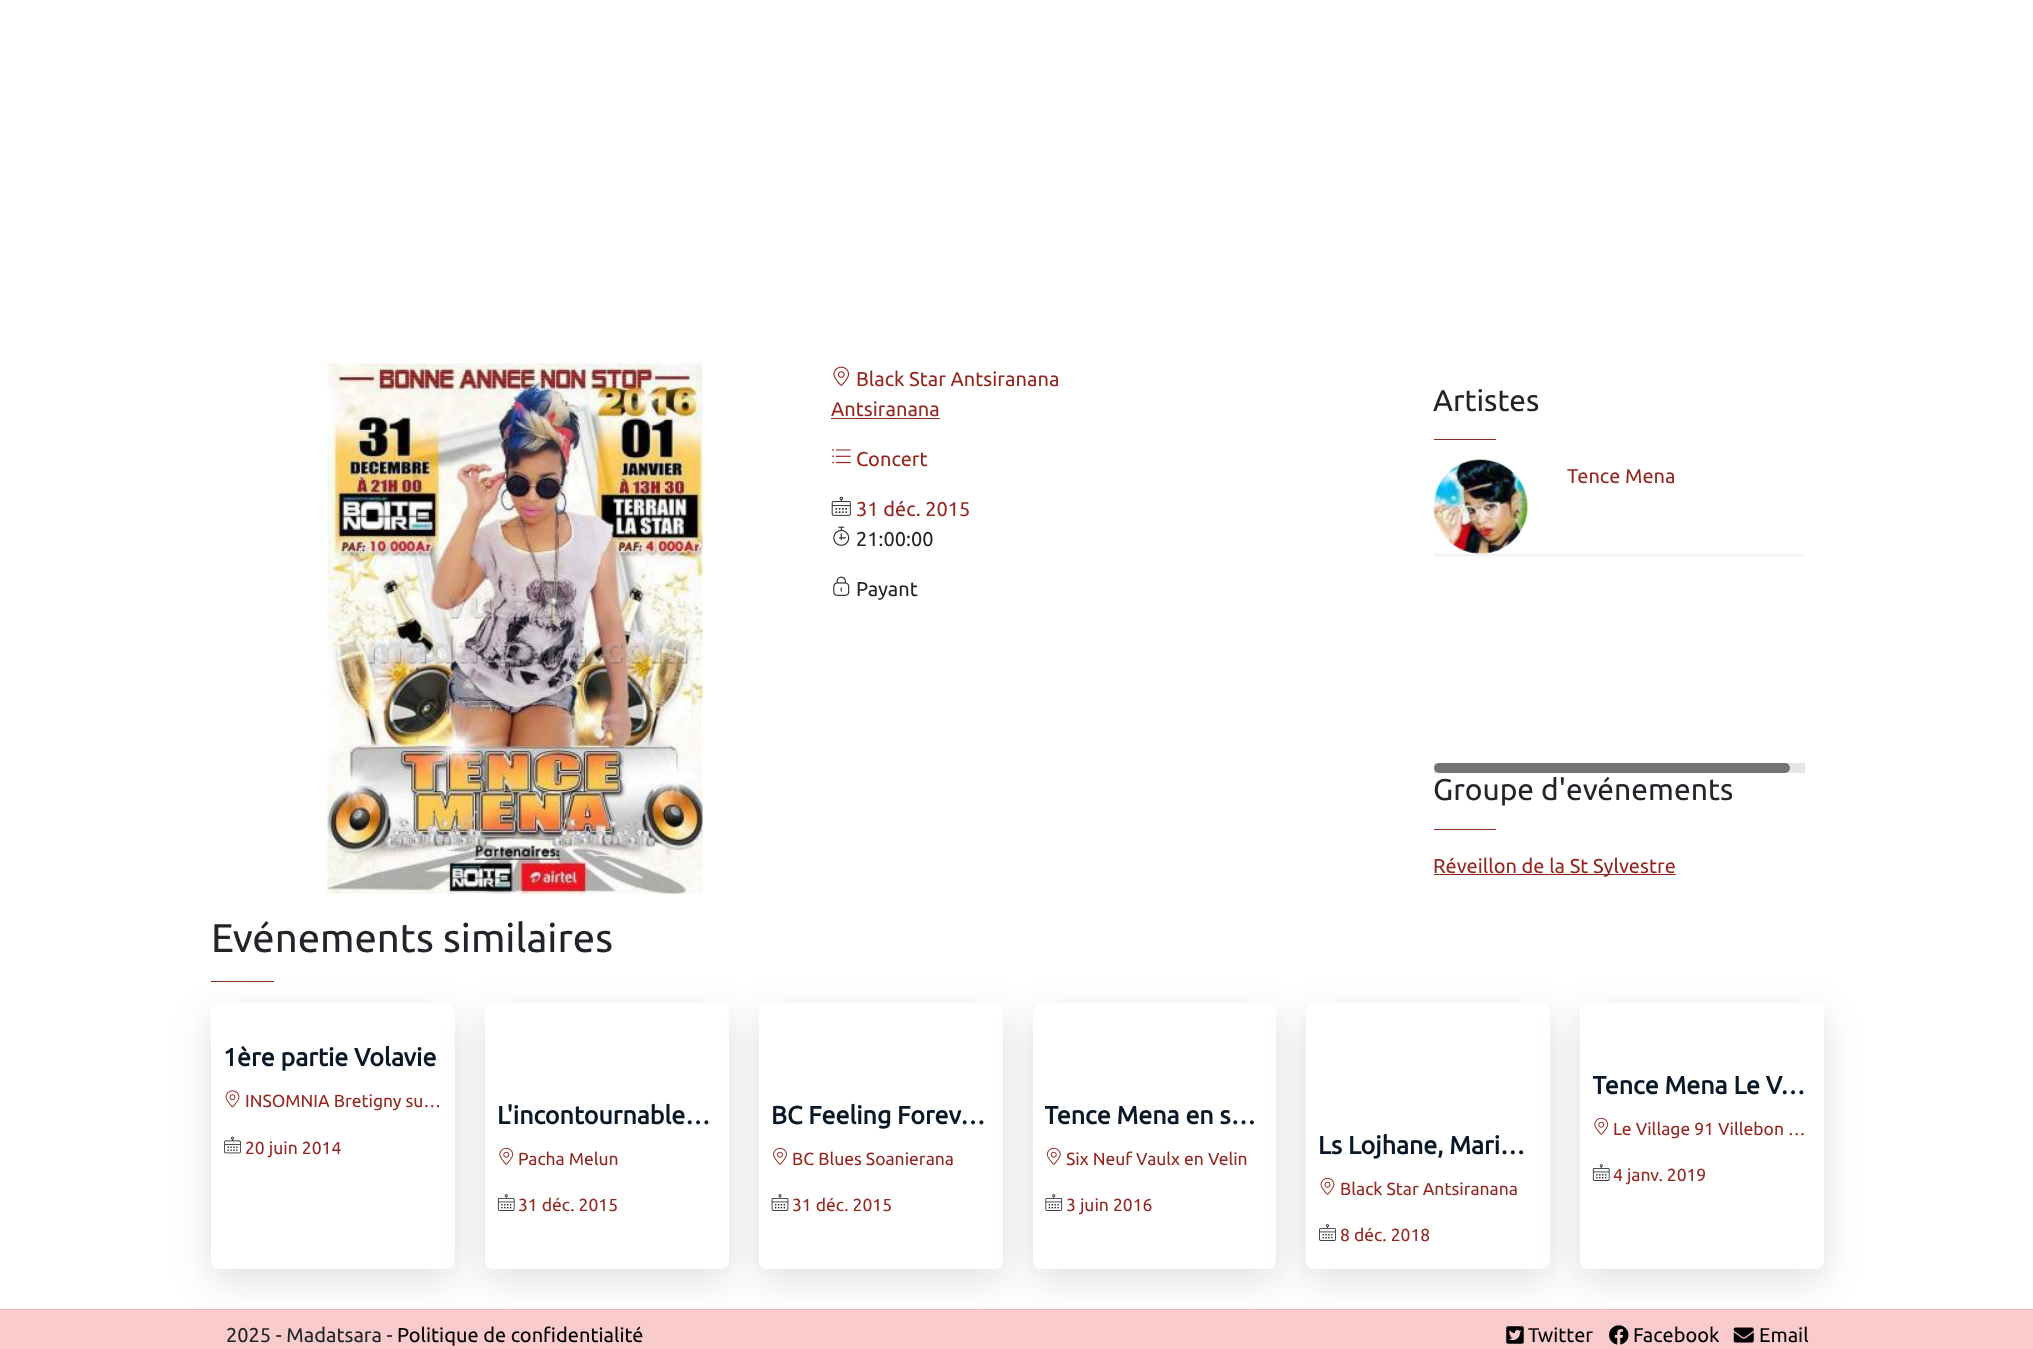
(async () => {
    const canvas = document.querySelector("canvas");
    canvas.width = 2033;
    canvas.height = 1349;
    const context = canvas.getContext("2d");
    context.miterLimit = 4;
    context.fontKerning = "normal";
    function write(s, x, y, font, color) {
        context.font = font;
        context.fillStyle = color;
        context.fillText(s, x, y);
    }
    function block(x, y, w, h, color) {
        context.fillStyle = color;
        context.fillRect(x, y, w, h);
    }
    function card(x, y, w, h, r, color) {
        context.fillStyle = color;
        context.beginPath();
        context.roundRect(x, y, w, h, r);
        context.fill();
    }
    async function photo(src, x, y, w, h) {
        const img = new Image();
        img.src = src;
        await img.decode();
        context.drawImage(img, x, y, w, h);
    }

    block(0, 0, 2033, 1349, "rgb(255, 255, 255)");
    await photo("media/1.png", 327, 363, 376, 531);
    await photo("media/2.png", 833, 366, 17, 20);
    write("Black Star Antsiranana", 856, 386, "20px Ubuntu", "rgb(148, 39, 31)");
    write("Antsiranana", 831, 416, "20px Ubuntu", "rgb(148, 39, 31)");
    block(831, 418, 109, 1, "rgb(148, 39, 31)");
    await photo("media/3.png", 832, 449, 19, 15);
    write("Concert", 856, 466, "20px Ubuntu", "rgb(148, 39, 31)");
    await photo("media/4.png", 831, 496, 20, 20);
    write("31 déc. 2015", 856, 516, "20px Ubuntu", "rgb(148, 39, 31)");
    await photo("media/5.png", 833, 526, 17, 20);
    write("21:00:00", 856, 546, "20px Ubuntu", "rgb(33, 37, 41)");
    await photo("media/6.png", 833, 576, 17, 20);
    write("Payant", 856, 596, "20px Ubuntu", "rgb(33, 37, 41)");
    write("Artistes", 1433, 411, "30px Ubuntu", "rgb(33, 37, 41)");
    block(1434, 439, 62, 1, "rgb(148, 39, 31)");
    context.save();
    context.beginPath();
    context.rect(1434, 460, 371, 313);
    context.clip();
    context.beginPath();
    context.rect(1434, 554, 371, 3);
    context.clip();
    context.fillStyle = "rgba(0, 0, 0, 0.07)";
    context.filter = "blur(2.5px)";
    context.beginPath();
    context.rect(1419, 463, 401, 93);
    context.fill();
    context.filter = "none";
    context.restore();
    await photo("media/7.png", 1433, 459, 95, 95);
    write("Tence Mena", 1567, 483, "20px Ubuntu", "rgb(148, 39, 31)");
    block(1434, 763, 371, 10, "rgb(230, 230, 230)");
    card(1434, 763, 356, 10, 5, "rgb(115, 115, 115)");
    write("Groupe d'evénements", 1433, 800, "30px Ubuntu", "rgb(33, 37, 41)");
    block(1434, 829, 62, 1, "rgb(148, 39, 31)");
    block(1434, 874, 242, 1, "rgb(148, 39, 31)");
    write("Réveillon de la St Sylvestre", 1433, 873, "20px Ubuntu", "rgb(148, 39, 31)");
    write("Evénements similaires", 211, 952, "40px Ubuntu", "rgb(33, 37, 41)");
    block(211, 981, 63, 1, "rgb(148, 39, 31)");
    context.fillStyle = "rgba(35, 38, 45, 0.14)";
    context.filter = "blur(19px)";
    context.beginPath();
    context.roundRect(211, 1015, 244, 266, 8);
    context.fill();
    context.filter = "none";
    card(211, 1003, 244, 266, 8, "rgb(255, 255, 255)");
    write("1ère partie Volavie", 223, 1066, "bold 25px Ubuntu", "rgb(8, 24, 40)");
    await photo("media/8.png", 225, 1090, 15, 18);
    write("INSOMNIA Bretigny su…", 245, 1107, "17.5px Ubuntu", "rgb(148, 39, 31)");
    await photo("media/9.png", 224, 1136, 17, 18);
    write("20 juin 2014", 245, 1154, "17.5px Ubuntu", "rgb(148, 39, 31)");
    context.fillStyle = "rgba(35, 38, 45, 0.14)";
    context.filter = "blur(19px)";
    context.beginPath();
    context.roundRect(485, 1015, 244, 266, 8);
    context.fill();
    context.filter = "none";
    card(485, 1003, 244, 266, 8, "rgb(255, 255, 255)");
    write("L'incontournable…", 497, 1124, "bold 25px Ubuntu", "rgb(8, 24, 40)");
    await photo("media/10.png", 499, 1147, 15, 18);
    write("Pacha Melun", 518, 1165, "17.5px Ubuntu", "rgb(148, 39, 31)");
    await photo("media/11.png", 497, 1194, 18, 17);
    write("31 déc. 2015", 518, 1211, "17.5px Ubuntu", "rgb(148, 39, 31)");
    context.fillStyle = "rgba(35, 38, 45, 0.14)";
    context.filter = "blur(19px)";
    context.beginPath();
    context.roundRect(759, 1015, 244, 266, 8);
    context.fill();
    context.filter = "none";
    card(759, 1003, 244, 266, 8, "rgb(255, 255, 255)");
    write("BC Feeling Forev…", 771, 1124, "bold 25px Ubuntu", "rgb(8, 24, 40)");
    await photo("media/12.png", 773, 1147, 14, 18);
    write("BC Blues Soanierana", 792, 1165, "17.5px Ubuntu", "rgb(148, 39, 31)");
    await photo("media/13.png", 771, 1194, 18, 17);
    write("31 déc. 2015", 792, 1211, "17.5px Ubuntu", "rgb(148, 39, 31)");
    context.fillStyle = "rgba(35, 38, 45, 0.14)";
    context.filter = "blur(19px)";
    context.beginPath();
    context.roundRect(1033, 1015, 243, 266, 8);
    context.fill();
    context.filter = "none";
    card(1033, 1003, 243, 266, 8, "rgb(255, 255, 255)");
    context.save();
    context.beginPath();
    context.rect(1045, 1093, 219, 41);
    context.clip();
    write("Tence Mena en s…", 1044, 1124, "bold 25px Ubuntu", "rgb(8, 24, 40)");
    context.restore();
    await photo("media/14.png", 1046, 1147, 15, 18);
    write("Six Neuf Vaulx en Velin", 1066, 1165, "17.5px Ubuntu", "rgb(148, 39, 31)");
    await photo("media/15.png", 1045, 1194, 18, 17);
    write("3 juin 2016", 1066, 1211, "17.5px Ubuntu", "rgb(148, 39, 31)");
    context.fillStyle = "rgba(35, 38, 45, 0.14)";
    context.filter = "blur(19px)";
    context.beginPath();
    context.roundRect(1306, 1015, 244, 266, 8);
    context.fill();
    context.filter = "none";
    card(1306, 1003, 244, 266, 8, "rgb(255, 255, 255)");
    write("Ls Lojhane, Mari…", 1318, 1154, "bold 25px Ubuntu", "rgb(8, 24, 40)");
    await photo("media/16.png", 1320, 1177, 15, 18);
    write("Black Star Antsiranana", 1340, 1195, "17.5px Ubuntu", "rgb(148, 39, 31)");
    await photo("media/17.png", 1319, 1224, 17, 17);
    write("8 déc. 2018", 1340, 1241, "17.5px Ubuntu", "rgb(148, 39, 31)");
    context.fillStyle = "rgba(35, 38, 45, 0.14)";
    context.filter = "blur(19px)";
    context.beginPath();
    context.roundRect(1580, 1015, 244, 266, 8);
    context.fill();
    context.filter = "none";
    card(1580, 1003, 244, 266, 8, "rgb(255, 255, 255)");
    context.save();
    context.beginPath();
    context.rect(1593, 1063, 218, 41);
    context.clip();
    write("Tence Mena Le V…", 1592, 1094, "bold 25px Ubuntu", "rgb(8, 24, 40)");
    context.restore();
    await photo("media/10.png", 1594, 1117, 15, 18);
    write("Le Village 91 Villebon …", 1613, 1135, "17.5px Ubuntu", "rgb(148, 39, 31)");
    await photo("media/11.png", 1592, 1164, 18, 17);
    write("4 janv. 2019", 1613, 1181, "17.5px Ubuntu", "rgb(148, 39, 31)");
    block(0, 1310, 2033, 39, "rgb(250, 203, 204)");
    block(0, 1309, 2033, 1, "rgb(248, 180, 181)");
    write("2025 - Madatsara -", 226, 1342, "20px Ubuntu", "rgb(33, 37, 41)");
    write("Politique de confidentialité", 397, 1342, "20px Ubuntu", "rgb(0, 0, 0)");
    await photo("media/18.png", 1506, 1326, 18, 18);
    write("Twitter", 1528, 1342, "20px Ubuntu", "rgb(0, 0, 0)");
    await photo("media/19.png", 1609, 1325, 20, 20);
    write("Facebook", 1633, 1342, "20px Ubuntu", "rgb(0, 0, 0)");
    await photo("media/20.png", 1733, 1327, 21, 16);
    write("Email", 1759, 1342, "20px Ubuntu", "rgb(0, 0, 0)");
})();
